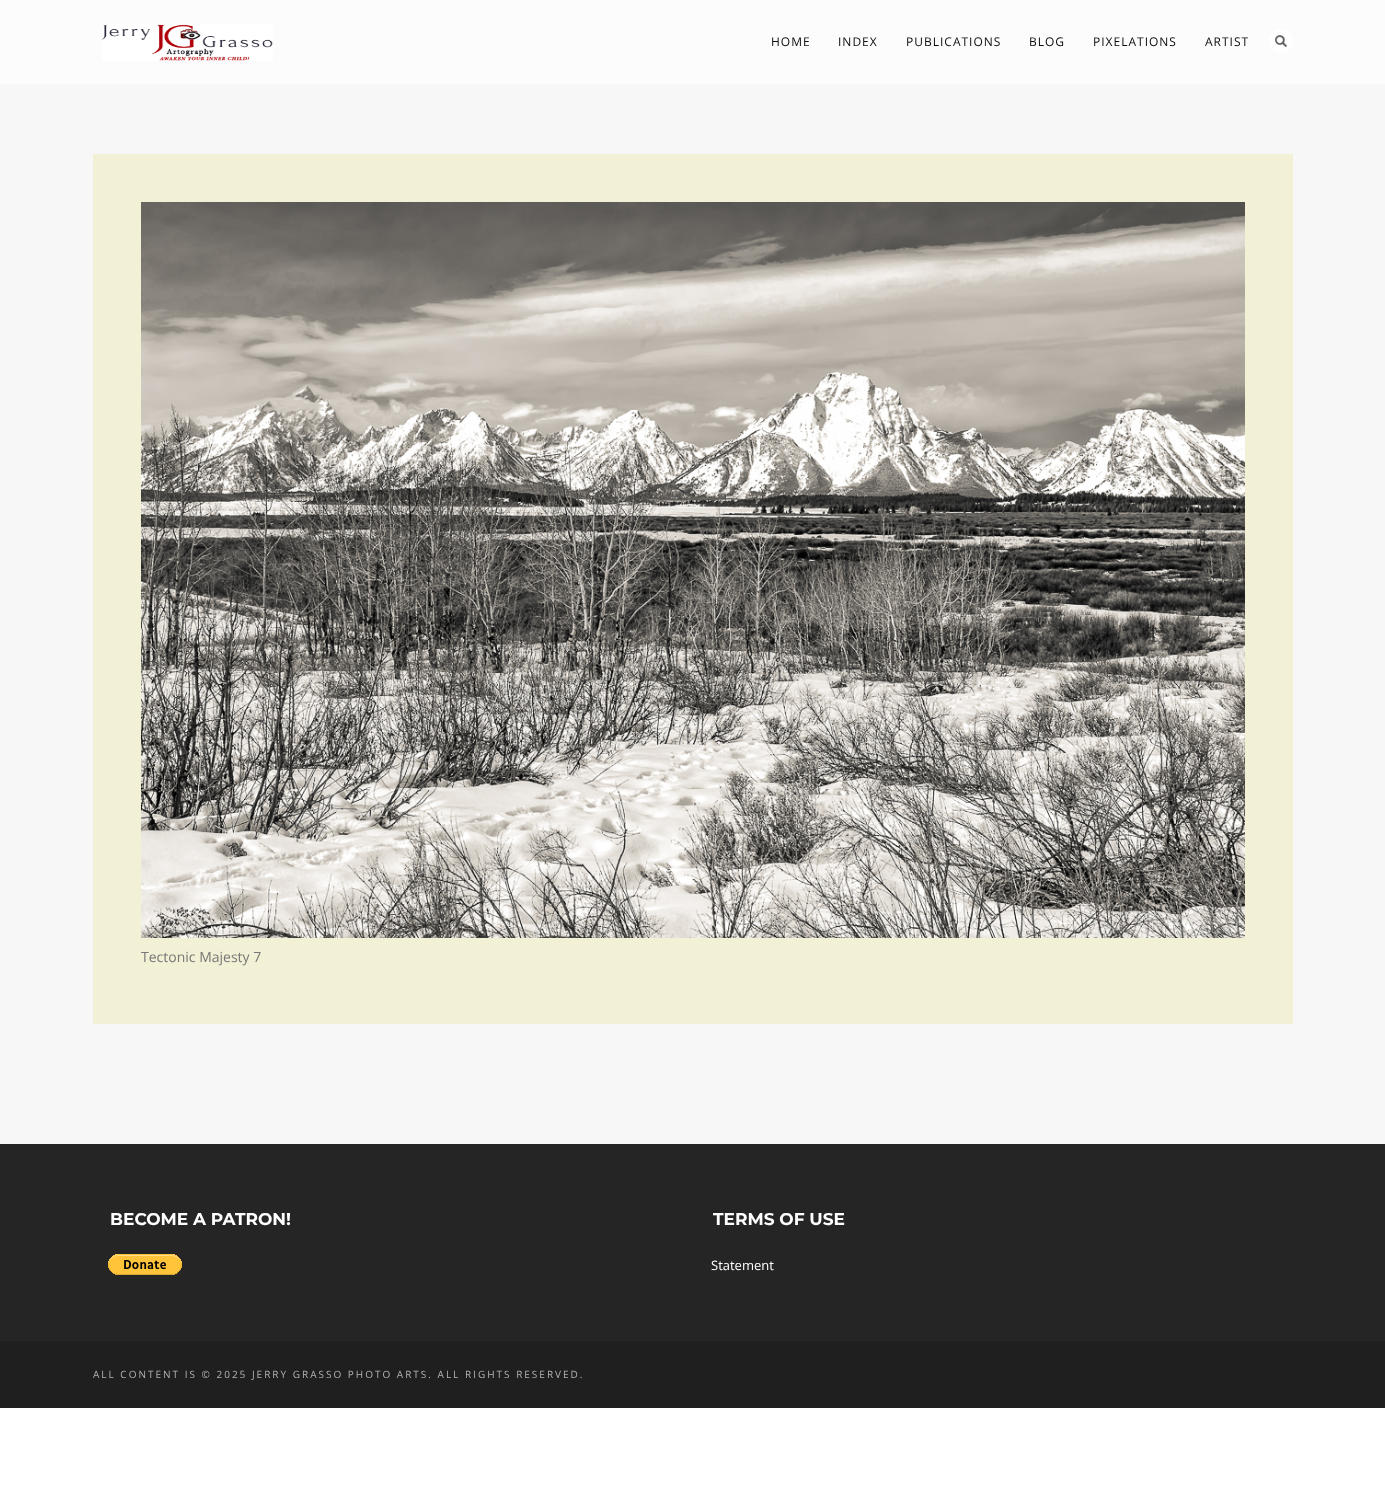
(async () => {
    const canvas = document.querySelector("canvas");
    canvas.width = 1385;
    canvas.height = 1503;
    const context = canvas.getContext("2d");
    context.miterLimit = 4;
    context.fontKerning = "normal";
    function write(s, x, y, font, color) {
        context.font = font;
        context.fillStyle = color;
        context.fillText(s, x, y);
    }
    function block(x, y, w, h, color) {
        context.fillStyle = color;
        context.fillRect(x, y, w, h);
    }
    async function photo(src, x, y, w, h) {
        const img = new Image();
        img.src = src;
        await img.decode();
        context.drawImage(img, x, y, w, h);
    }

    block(0, 0, 1385, 1503, "rgb(255, 255, 255)");
    block(0, 84, 1385, 1060, "rgb(247, 247, 247)");
    block(0, 0, 1385, 84, "rgb(252, 252, 252)");
    await photo("media/1.png", 102, 24, 171, 37);
    context.letterSpacing = "1px";
    write("HOME", 771, 46, "12px Open Sans", "rgb(12, 12, 12)");
    write("INDEX", 838, 46, "12px Open Sans", "rgb(12, 12, 12)");
    write("PUBLICATIONS", 906, 46, "12px Open Sans", "rgb(12, 12, 12)");
    write("BLOG", 1029, 46, "12px Open Sans", "rgb(12, 12, 12)");
    write("PIXELATIONS", 1093, 46, "12px Open Sans", "rgb(12, 12, 12)");
    write("ARTIST", 1205, 46, "12px Open Sans", "rgb(12, 12, 12)");
    context.fillStyle = "rgb(255, 255, 255)";
    context.beginPath();
    context.arc(1281, 41, 12, 0, Math.PI * 2);
    context.fill();
    await photo("media/2.png", 1275, 35, 12, 12);
    block(93, 154, 1200, 870, "rgb(242, 240, 213)");
    await photo("media/3.png", 141, 202, 1104, 736);
    context.letterSpacing = "0px";
    write("Tectonic Majesty 7", 141, 962, "14px Open Sans", "rgb(119, 119, 119)");
    block(0, 1144, 1385, 197, "rgb(37, 37, 37)");
    write("BECOME A PATRON!", 110, 1225, "bold 17px Montserrat", "rgb(255, 255, 255)");
    await photo("media/4.png", 108, 1254, 74, 21);
    write("TERMS OF USE", 713, 1225, "bold 17px Montserrat", "rgb(255, 255, 255)");
    write("Statement", 711, 1270, "13px Open Sans", "rgb(255, 255, 255)");
    block(0, 1341, 1385, 67, "rgb(31, 31, 31)");
    context.letterSpacing = "2px";
    write("ALL CONTENT IS © 2025 JERRY GRASSO PHOTO ARTS. ALL RIGHTS RESERVED.", 93, 1378, "10px Open Sans", "rgb(179, 179, 177)");
})();
